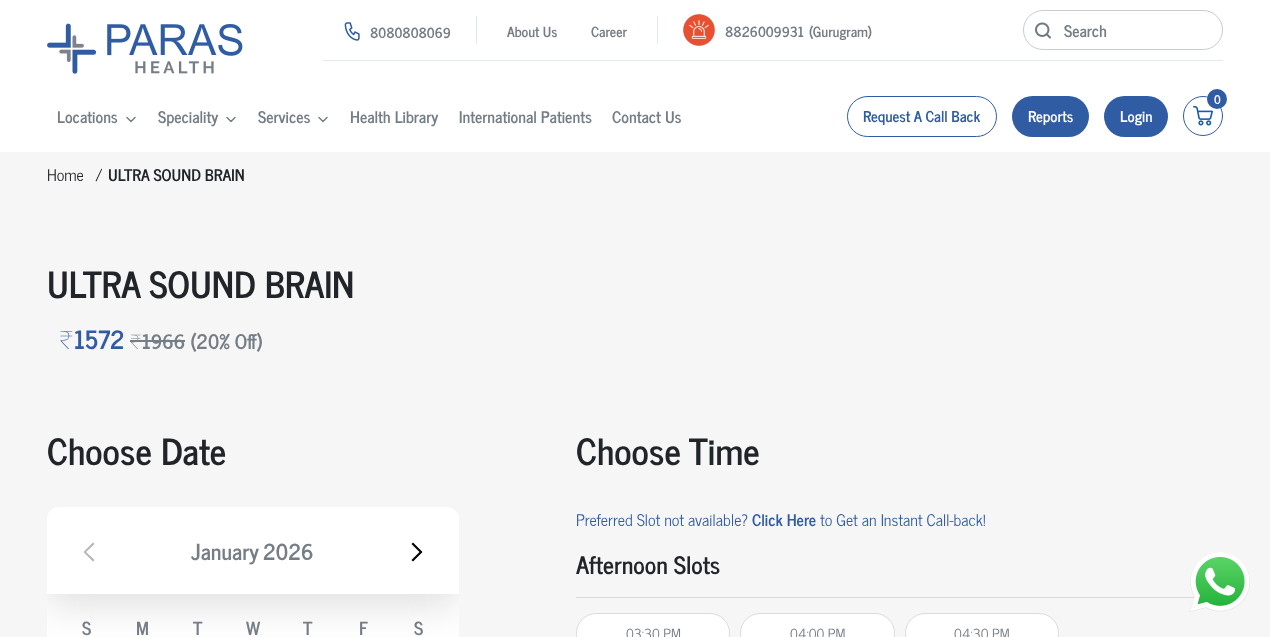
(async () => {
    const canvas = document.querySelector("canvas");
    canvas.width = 1270;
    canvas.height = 637;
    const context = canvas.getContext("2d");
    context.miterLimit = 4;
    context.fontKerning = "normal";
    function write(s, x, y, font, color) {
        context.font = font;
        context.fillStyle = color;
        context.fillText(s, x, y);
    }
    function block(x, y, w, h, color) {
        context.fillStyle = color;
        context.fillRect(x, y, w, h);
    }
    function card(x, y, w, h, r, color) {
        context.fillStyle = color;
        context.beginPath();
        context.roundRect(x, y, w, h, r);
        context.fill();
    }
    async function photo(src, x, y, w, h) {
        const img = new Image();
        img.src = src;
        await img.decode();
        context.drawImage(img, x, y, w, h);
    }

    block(0, 0, 1270, 637, "rgb(255, 255, 255)");
    block(323, 60, 900, 1, "rgb(224, 233, 236)");
    await photo("media/1.png", 344, 22, 16, 19);
    write("8080808069", 370, 38, "bold 14px News Cycle", "rgb(117, 125, 135)");
    block(657, 16, 1, 28, "rgb(224, 233, 236)");
    block(476, 16, 1, 28, "rgb(224, 233, 236)");
    write("About Us", 507, 37, "bold 14px News Cycle", "rgb(117, 125, 135)");
    write("Career", 591, 37, "bold 14px News Cycle", "rgb(117, 125, 135)");
    await photo("media/2.png", 683, 14, 32, 32);
    write("8826009931", 725, 37, "bold 14px News Cycle", "rgb(117, 125, 135)");
    write("(Gurugram)", 809, 37, "bold 14px News Cycle", "rgb(117, 125, 135)");
    context.beginPath();
    context.roundRect(1023.5, 10.5, 199, 39, 19.5);
    context.strokeStyle = "rgb(198, 205, 212)";
    context.stroke();
    await photo("media/3.png", 1035, 22, 16, 17);
    write("Search", 1064, 37, "bold 16px News Cycle", "rgb(117, 125, 135)");
    await photo("media/4.png", 47, 23, 196, 51);
    write("Locations", 57, 123, "bold 16px News Cycle", "rgb(117, 125, 135)");
    context.beginPath();
    context.moveTo(135, 117.5);
    context.lineTo(131, 121.5);
    context.lineTo(127, 117.5);
    context.strokeStyle = "rgb(117, 125, 135)";
    context.lineWidth = 1.5;
    context.lineCap = "round";
    context.lineJoin = "round";
    context.stroke();
    write("Speciality", 158, 123, "bold 16px News Cycle", "rgb(117, 125, 135)");
    context.beginPath();
    context.moveTo(235, 117.5);
    context.lineTo(231, 121.5);
    context.lineTo(227, 117.5);
    context.stroke();
    write("Services", 258, 123, "bold 16px News Cycle", "rgb(117, 125, 135)");
    context.beginPath();
    context.moveTo(327, 117.5);
    context.lineTo(323, 121.5);
    context.lineTo(319, 117.5);
    context.stroke();
    write("Health Library", 350, 123, "bold 16px News Cycle", "rgb(117, 125, 135)");
    write("International Patients", 459, 123, "bold 16px News Cycle", "rgb(117, 125, 135)");
    write("Contact Us", 612, 123, "bold 16px News Cycle", "rgb(117, 125, 135)");
    context.beginPath();
    context.arc(1203, 116, 19.5, 0, Math.PI * 2);
    context.strokeStyle = "rgb(47, 92, 162)";
    context.lineWidth = 1;
    context.stroke();
    await photo("media/5.png", 1193, 106, 20, 20);
    context.fillStyle = "rgb(47, 92, 162)";
    context.beginPath();
    context.arc(1217, 99, 10, 0, Math.PI * 2);
    context.fill();
    write("0", 1214, 104, "bold 12px News Cycle", "rgb(255, 255, 255)");
    context.beginPath();
    context.roundRect(847.5, 96.5, 149, 40, 20);
    context.lineJoin = "miter";
    context.stroke();
    write("Request A Call Back", 863, 122, "bold 15px News Cycle", "rgb(47, 92, 162)");
    card(1012, 96, 77, 41, 20.5, "rgb(47, 92, 162)");
    write("Reports", 1028, 122, "bold 15px News Cycle", "rgb(255, 255, 255)");
    card(1104, 96, 64, 41, 20.5, "rgb(47, 92, 162)");
    write("Login", 1120, 122, "bold 15px News Cycle", "rgb(255, 255, 255)");
    block(0, 152, 1270, 485, "rgb(246, 246, 246)");
    block(576, 597, 619, 1, "rgb(217, 217, 216)");
    await photo("media/6.png", 1190, 552, 60, 60);
    write("Home", 47, 181, "16px News Cycle", "rgb(33, 37, 41)");
    write("/", 95, 181, "16px News Cycle", "rgb(33, 37, 41)");
    write("ULTRA SOUND BRAIN", 108, 181, "bold 16px News Cycle", "rgb(33, 37, 41)");
    write("ULTRA SOUND BRAIN", 47, 298, "bold 36px News Cycle", "rgb(33, 37, 41)");
    write("₹", 59, 349, "100 25px Noto Sans", "rgb(47, 92, 162)");
    write("1572", 74, 349, "bold 25px News Cycle", "rgb(47, 92, 162)");
    write("₹", 130, 349, "100 20px Noto Sans", "rgb(117, 125, 135)");
    block(130, 340, 55, 2, "rgb(117, 125, 135)");
    write("1966 (20% Off)", 142, 349, "bold 20px News Cycle", "rgb(117, 125, 135)");
    write("Choose Date", 47, 465, "bold 36px News Cycle", "rgb(33, 37, 41)");
    card(47, 507, 412, 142, 12, "rgb(255, 255, 255)");
    context.save();
    context.beginPath();
    context.roundRect(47, 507, 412, 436, 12);
    context.clip();
    context.beginPath();
    context.rect(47, 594, 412, 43);
    context.clip();
    context.fillStyle = "rgb(221, 221, 221)";
    context.filter = "blur(20px)";
    context.beginPath();
    context.rect(47, 517, 412, 87);
    context.fill();
    context.filter = "none";
    context.restore();
    context.fillStyle = "rgb(179, 179, 179)";
    context.beginPath();
    context.moveTo(93, 542.5);
    context.lineTo(83.5, 552);
    context.lineTo(93, 561.5);
    context.lineTo(94.5, 560);
    context.lineTo(86, 552);
    context.lineTo(94.5, 544);
    context.closePath();
    context.fill();
    write("January", 191, 560, "bold 22px News Cycle", "rgb(117, 125, 135)");
    write("2026", 263, 560, "bold 22px News Cycle", "rgb(117, 125, 135)");
    context.fillStyle = "rgb(0, 0, 0)";
    context.beginPath();
    context.moveTo(413, 561.5);
    context.lineTo(422.5, 552);
    context.lineTo(413, 542.5);
    context.lineTo(411.5, 544);
    context.lineTo(419.5, 552);
    context.lineTo(411.5, 560);
    context.closePath();
    context.fill();
    write("S", 82, 635, "bold 18px News Cycle", "rgb(117, 125, 135)");
    write("M", 136, 635, "bold 18px News Cycle", "rgb(117, 125, 135)");
    write("T", 193, 635, "bold 18px News Cycle", "rgb(117, 125, 135)");
    write("W", 246, 635, "bold 18px News Cycle", "rgb(117, 125, 135)");
    write("T", 303, 635, "bold 18px News Cycle", "rgb(117, 125, 135)");
    write("F", 359, 635, "bold 18px News Cycle", "rgb(117, 125, 135)");
    write("S", 414, 635, "bold 18px News Cycle", "rgb(117, 125, 135)");
    write("Choose Time", 576, 465, "bold 36px News Cycle", "rgb(33, 37, 41)");
    write("Preferred Slot not available?", 576, 526, "16px News Cycle", "rgb(47, 92, 162)");
    write("Click Here", 752, 526, "bold 16px News Cycle", "rgb(47, 92, 162)");
    write("to Get an Instant Call-back!", 820, 526, "16px News Cycle", "rgb(47, 92, 162)");
    write("Afternoon Slots", 576, 574, "bold 24px News Cycle", "rgb(33, 37, 41)");
    context.fillStyle = "rgb(255, 255, 255)";
    context.beginPath();
    context.roundRect(576.5, 613.5, 153, 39, 19.5);
    context.fill();
    context.strokeStyle = "rgb(221, 219, 219)";
    context.stroke();
    write("03:30 PM", 626, 639, "14px News Cycle", "rgb(117, 125, 135)");
    context.fillStyle = "rgb(255, 255, 255)";
    context.beginPath();
    context.roundRect(740.5, 613.5, 154, 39, 19.5);
    context.fill();
    context.stroke();
    write("04:00 PM", 790, 639, "14px News Cycle", "rgb(117, 125, 135)");
    context.fillStyle = "rgb(255, 255, 255)";
    context.beginPath();
    context.roundRect(905.5, 613.5, 153, 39, 19.5);
    context.fill();
    context.stroke();
    write("04:30 PM", 954, 639, "14px News Cycle", "rgb(117, 125, 135)");
})();
